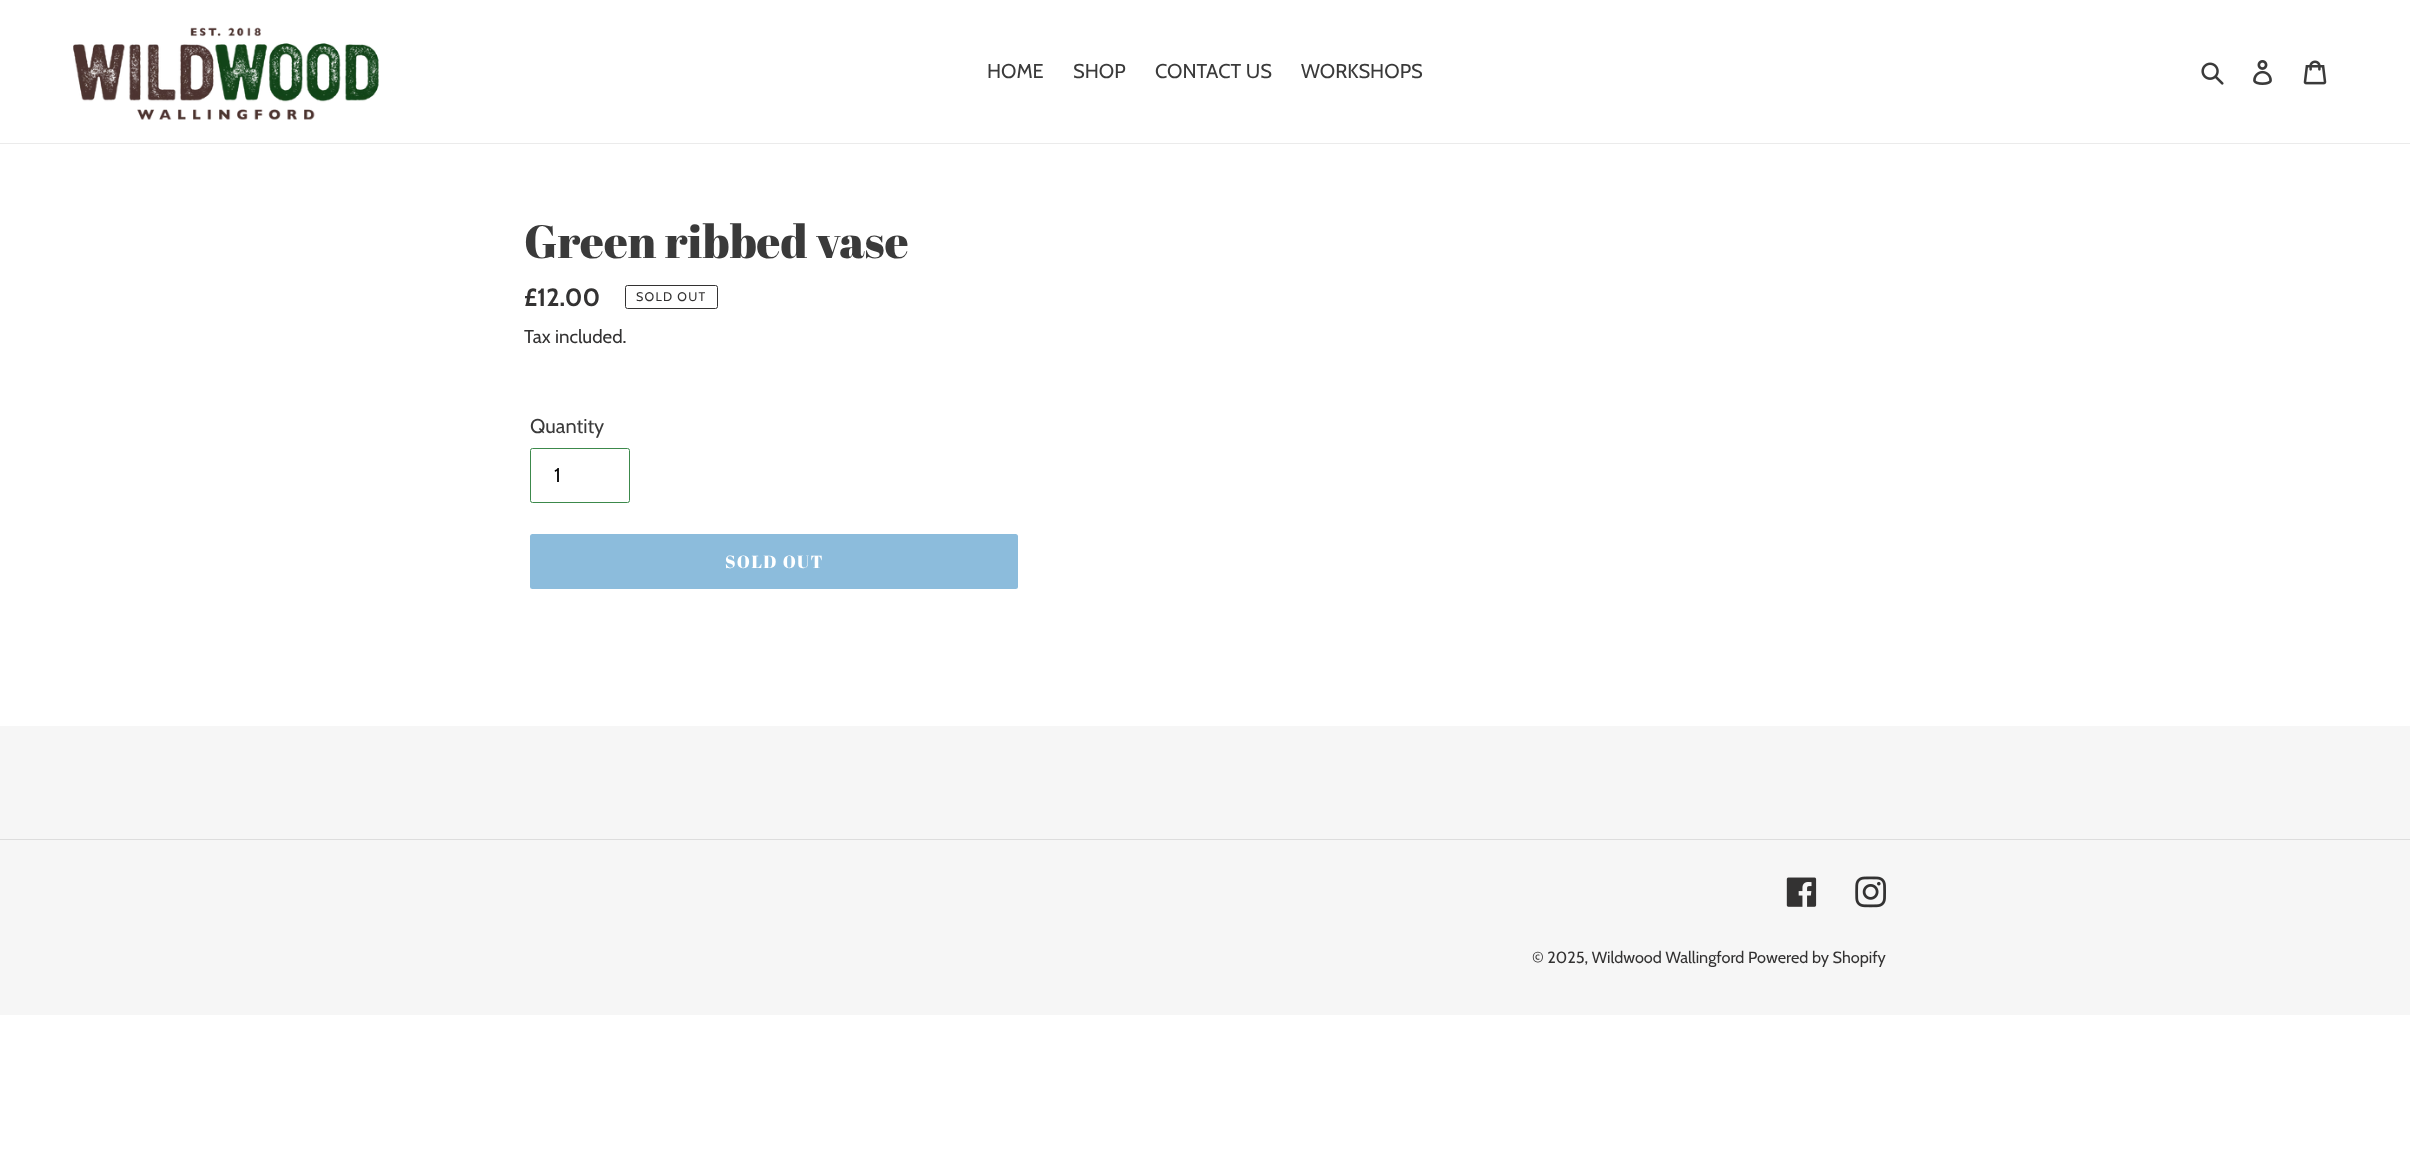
(async () => {
    const canvas = document.querySelector("canvas");
    canvas.width = 2410;
    canvas.height = 1176;
    const context = canvas.getContext("2d");
    context.miterLimit = 4;
    context.fontKerning = "normal";
    function write(s, x, y, font, color) {
        context.font = font;
        context.fillStyle = color;
        context.fillText(s, x, y);
    }
    function block(x, y, w, h, color) {
        context.fillStyle = color;
        context.fillRect(x, y, w, h);
    }
    function card(x, y, w, h, r, color) {
        context.fillStyle = color;
        context.beginPath();
        context.roundRect(x, y, w, h, r);
        context.fill();
    }
    async function photo(src, x, y, w, h) {
        const img = new Image();
        img.src = src;
        await img.decode();
        context.drawImage(img, x, y, w, h);
    }

    block(0, 0, 2410, 1176, "rgb(255, 255, 255)");
    block(0, 143, 2410, 1, "rgb(235, 235, 235)");
    await photo("media/1.png", 73, 27, 306, 93);
    write("HOME", 987, 78, "20px Cabin", "rgb(58, 58, 58)");
    write("SHOP", 1073, 78, "20px Cabin", "rgb(58, 58, 58)");
    write("CONTACT US", 1155, 78, "20px Cabin", "rgb(58, 58, 58)");
    write("WORKSHOPS", 1301, 78, "20px Cabin", "rgb(58, 58, 58)");
    await photo("media/2.png", 2201, 62, 23, 23);
    await photo("media/3.png", 2253, 60, 19, 25);
    await photo("media/4.png", 2303, 60, 24, 25);
    write("Green ribbed vase", 524, 258, "46.25px Abril Fatface", "rgb(58, 58, 58)");
    write("£12.00", 524, 306, "bold 25px Cabin", "rgb(51, 50, 50)");
    context.beginPath();
    context.roundRect(625.5, 285.5, 92, 23, 2);
    context.strokeStyle = "rgb(51, 50, 50)";
    context.stroke();
    context.letterSpacing = "1.25px";
    write("SOLD OUT", 636, 301, "12.5px Cabin", "rgb(51, 50, 50)");
    context.letterSpacing = "0px";
    write("Tax included.", 524, 343, "18.75px Cabin", "rgb(51, 50, 50)");
    write("Quantity", 530, 433, "20px Cabin", "rgb(58, 58, 58)");
    context.beginPath();
    context.roundRect(530.5, 448.5, 99, 54, 2);
    context.strokeStyle = "rgb(60, 137, 75)";
    context.stroke();
    write("1", 554, 482, "20px Cabin", "rgb(0, 0, 0)");
    card(530, 534, 488, 55, 2.5, "rgb(140, 188, 220)");
    context.letterSpacing = "1.5px";
    write("SOLD OUT", 725, 568, "17.5px Abril Fatface", "rgb(255, 255, 255)");
    block(0, 726, 2410, 289, "rgb(246, 246, 246)");
    block(0, 839, 2410, 1, "rgb(221, 221, 221)");
    await photo("media/5.png", 1786, 877, 31, 30);
    await photo("media/6.png", 1855, 876, 31, 32);
    context.letterSpacing = "0px";
    write("© 2025, Wildwood Wallingford", 1532, 963, "16.25px Cabin", "rgb(51, 50, 50)");
    write("Powered by Shopify", 1748, 963, "16.25px Cabin", "rgb(51, 50, 50)");
})();
